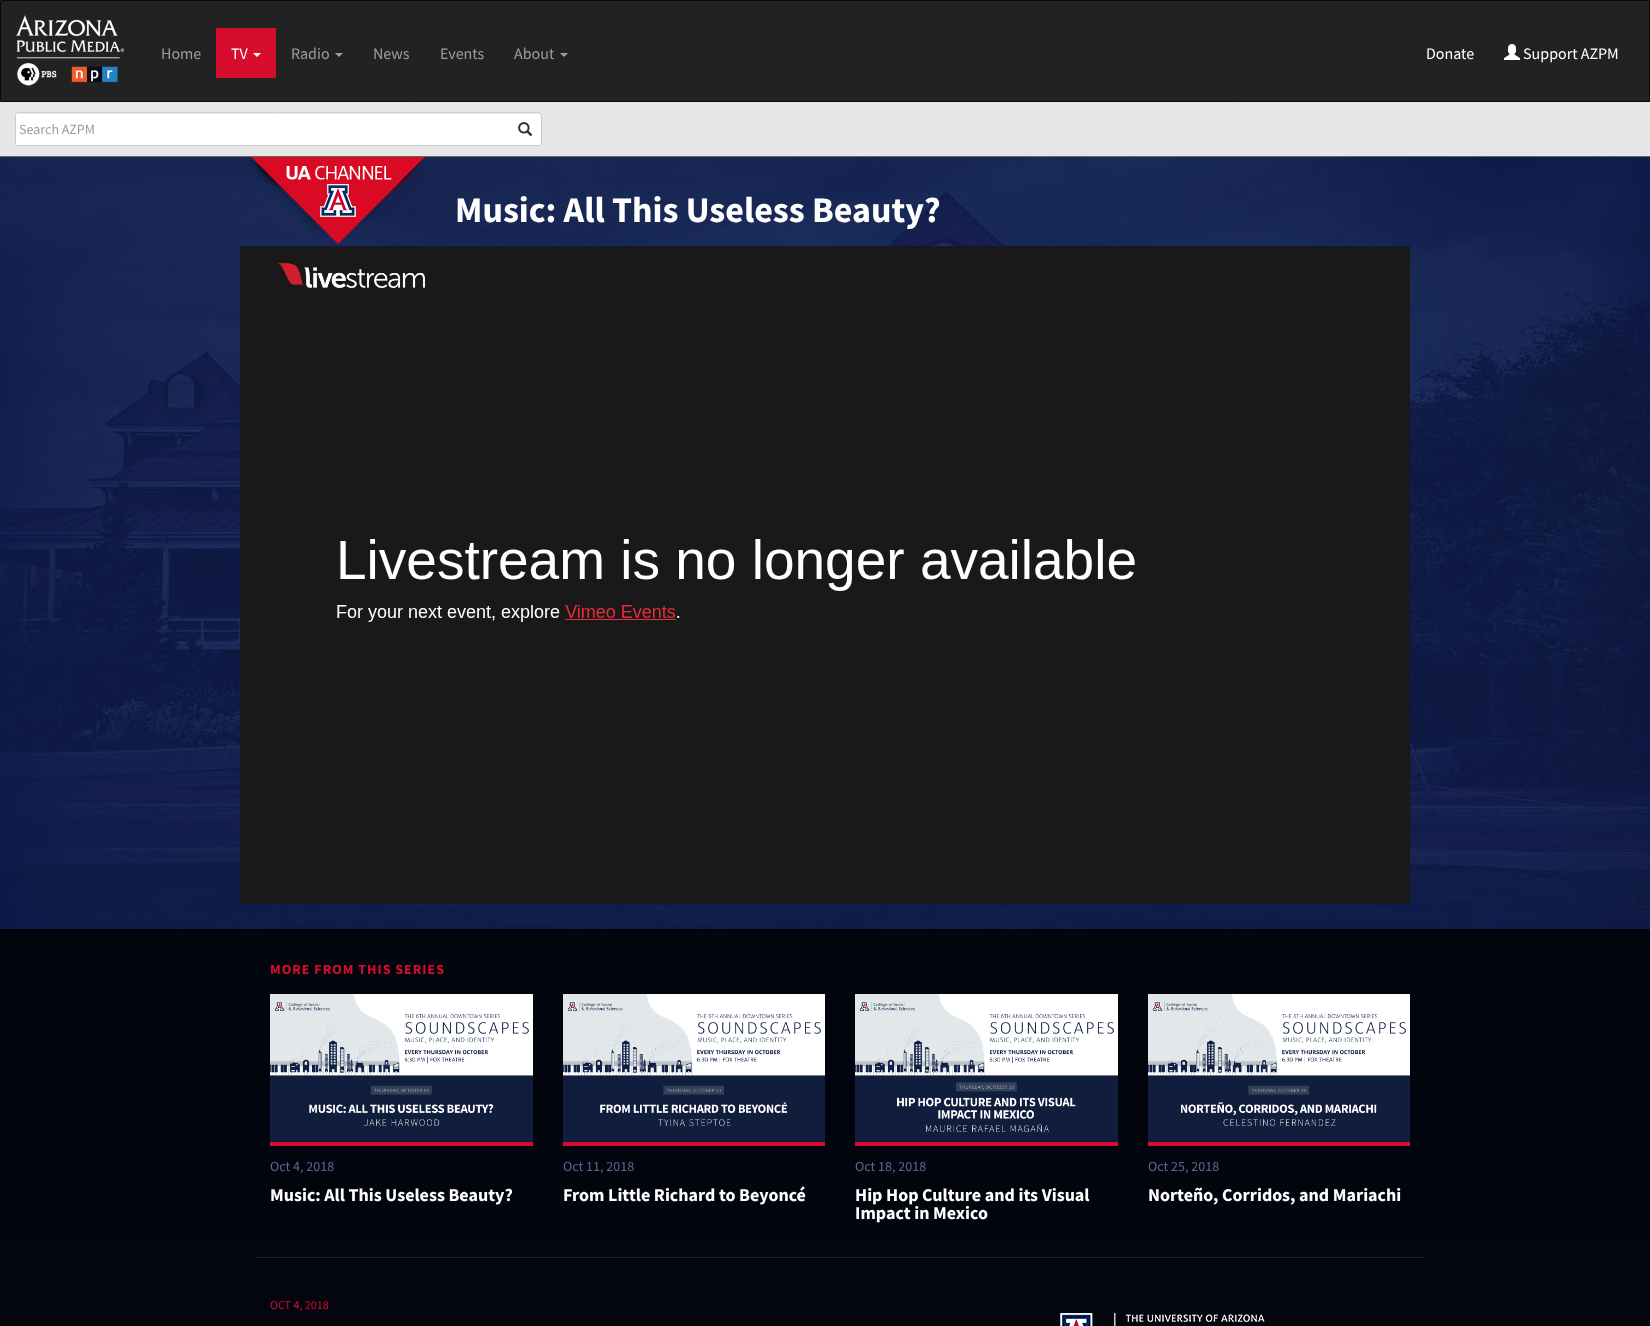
(async () => {
    const canvas = document.querySelector("canvas");
    canvas.width = 1650;
    canvas.height = 1326;
    const context = canvas.getContext("2d");
    context.miterLimit = 4;
    context.fontKerning = "normal";
    function write(s, x, y, font, color) {
        context.font = font;
        context.fillStyle = color;
        context.fillText(s, x, y);
    }
    function block(x, y, w, h, color) {
        context.fillStyle = color;
        context.fillRect(x, y, w, h);
    }
    function card(x, y, w, h, r, color) {
        context.fillStyle = color;
        context.beginPath();
        context.roundRect(x, y, w, h, r);
        context.fill();
    }
    async function photo(src, x, y, w, h) {
        const img = new Image();
        img.src = src;
        await img.decode();
        context.drawImage(img, x, y, w, h);
    }

    block(0, 0, 1650, 1326, "rgb(230, 230, 230)");
    context.fillStyle = "rgb(34, 34, 34)";
    context.beginPath();
    context.rect(0.5, 0.5, 1649, 101);
    context.fill();
    context.strokeStyle = "rgb(8, 8, 8)";
    context.stroke();
    await photo("media/1.png", 16, 15, 108, 71);
    write("Home", 161, 59, "16px Source Sans Pro", "rgb(157, 157, 157)");
    block(216, 28, 60, 50, "rgb(215, 13, 46)");
    write("TV", 231, 59, "16px Source Sans Pro", "rgb(255, 255, 255)");
    context.beginPath();
    context.moveTo(253, 53);
    context.lineTo(261, 53);
    context.lineTo(257, 57);
    context.closePath();
    context.fill();
    write("Radio", 291, 59, "16px Source Sans Pro", "rgb(157, 157, 157)");
    context.beginPath();
    context.moveTo(335, 53);
    context.lineTo(343, 53);
    context.lineTo(339, 57);
    context.closePath();
    context.fill();
    write("News", 373, 59, "16px Source Sans Pro", "rgb(157, 157, 157)");
    write("Events", 440, 59, "16px Source Sans Pro", "rgb(157, 157, 157)");
    write("About", 514, 59, "16px Source Sans Pro", "rgb(157, 157, 157)");
    context.beginPath();
    context.moveTo(560, 53);
    context.lineTo(568, 53);
    context.lineTo(564, 57);
    context.closePath();
    context.fill();
    write("Donate", 1426, 59, "16px Source Sans Pro", "rgb(255, 255, 255)");
    await photo("media/2.png", 1504, 44, 16, 16);
    write("Support AZPM", 1523, 59, "16px Source Sans Pro", "rgb(255, 255, 255)");
    block(0, 156, 1650, 1, "rgb(102, 102, 102)");
    card(15, 112, 527, 34, 3, "rgb(255, 255, 255)");
    context.fillStyle = "rgb(236, 236, 236)";
    context.beginPath();
    context.moveTo(18, 114);
    context.lineTo(539, 114);
    context.lineTo(541, 116);
    context.bezierCurveTo(541, 115, 541, 113, 539, 113);
    context.lineTo(18, 113);
    context.lineTo(16, 114);
    context.lineTo(16, 116);
    context.bezierCurveTo(16, 115, 17, 114, 18, 114);
    context.closePath();
    context.fill();
    context.beginPath();
    context.roundRect(15.5, 112.5, 526, 33, 2.5);
    context.strokeStyle = "rgb(204, 204, 204)";
    context.stroke();
    write("Search AZPM", 19, 134, "14px Source Sans Pro", "rgb(157, 157, 157)");
    await photo("media/3.png", 518, 122, 15, 14);
    block(0, 1237, 1650, 89, "rgb(18, 31, 78)");
    await photo("media/4.png", 0, 157, 1650, 1080);
    await photo("media/5.png", 250, 157, 175, 87);
    write("Music: All This Useless Beauty?", 455, 222, "bold 36px Source Sans Pro", "rgb(255, 255, 255)");
    await photo("media/6.png", 240, 246, 1170, 658);
    block(0, 929, 1650, 397, "rgba(0, 0, 0, 0.8)");
    block(255, 1257, 1170, 1, "rgb(18, 31, 76)");
    context.letterSpacing = "1px";
    write("MORE FROM THIS SERIES", 270, 974, "bold 14px Source Sans Pro", "rgb(215, 13, 46)");
    block(270, 1142, 263, 4, "rgb(215, 13, 46)");
    await photo("media/7.png", 270, 994, 263, 148);
    context.letterSpacing = "0px";
    write("Oct 4, 2018", 270, 1171, "14px Source Sans Pro", "rgb(91, 104, 150)");
    write("Music: All This Useless Beauty?", 270, 1201, "bold 18px Source Sans Pro", "rgb(255, 255, 255)");
    block(563, 1142, 262, 4, "rgb(215, 13, 46)");
    await photo("media/8.png", 563, 994, 262, 148);
    write("Oct 11, 2018", 563, 1171, "14px Source Sans Pro", "rgb(91, 104, 150)");
    write("From Little Richard to Beyoncé", 563, 1201, "bold 18px Source Sans Pro", "rgb(255, 255, 255)");
    block(855, 1142, 263, 4, "rgb(215, 13, 46)");
    await photo("media/9.png", 855, 994, 263, 148);
    write("Oct 18, 2018", 855, 1171, "14px Source Sans Pro", "rgb(91, 104, 150)");
    write("Hip Hop Culture and its Visual", 855, 1201, "bold 18px Source Sans Pro", "rgb(255, 255, 255)");
    write("Impact in Mexico", 855, 1219, "bold 18px Source Sans Pro", "rgb(255, 255, 255)");
    block(1148, 1142, 262, 4, "rgb(215, 13, 46)");
    await photo("media/10.png", 1148, 994, 262, 148);
    write("Oct 25, 2018", 1148, 1171, "14px Source Sans Pro", "rgb(91, 104, 150)");
    write("Norteño, Corridos, and Mariachi", 1148, 1201, "bold 18px Source Sans Pro", "rgb(255, 255, 255)");
    write("OCT 4, 2018", 270, 1309, "12px Source Sans Pro", "rgb(215, 13, 46)");
    await photo("media/11.png", 1060, 1313, 205, 13);
})();
